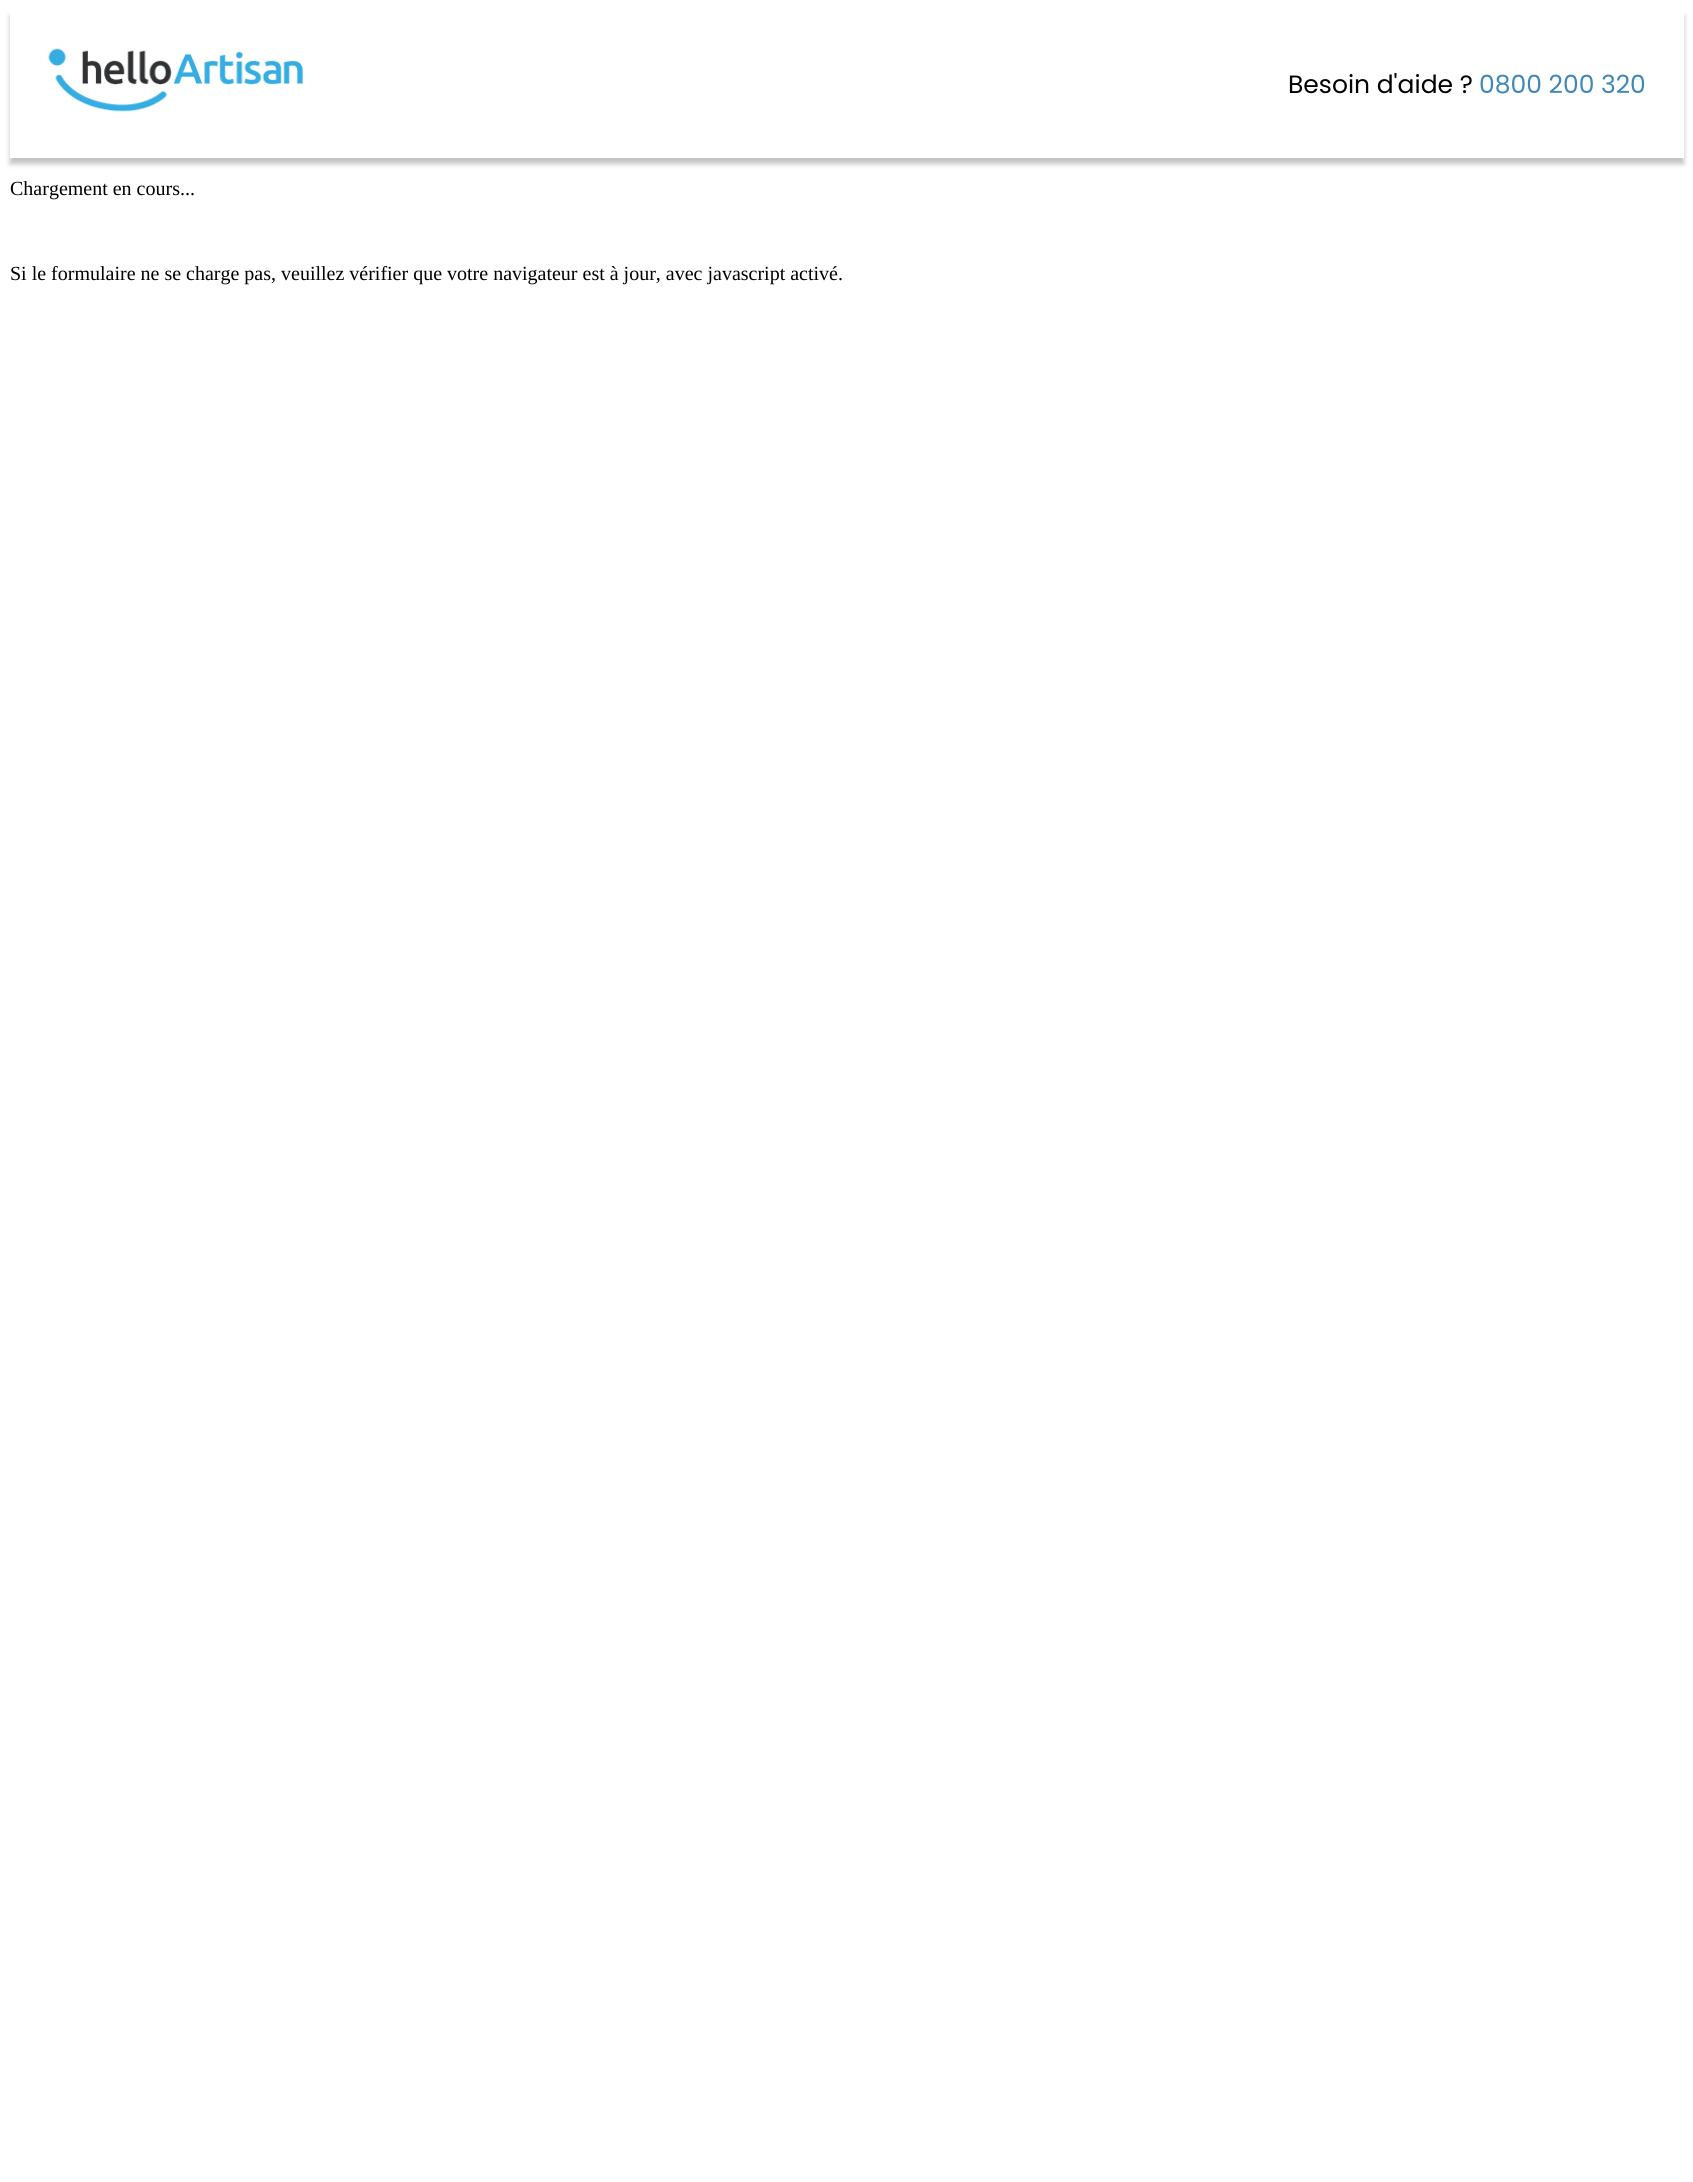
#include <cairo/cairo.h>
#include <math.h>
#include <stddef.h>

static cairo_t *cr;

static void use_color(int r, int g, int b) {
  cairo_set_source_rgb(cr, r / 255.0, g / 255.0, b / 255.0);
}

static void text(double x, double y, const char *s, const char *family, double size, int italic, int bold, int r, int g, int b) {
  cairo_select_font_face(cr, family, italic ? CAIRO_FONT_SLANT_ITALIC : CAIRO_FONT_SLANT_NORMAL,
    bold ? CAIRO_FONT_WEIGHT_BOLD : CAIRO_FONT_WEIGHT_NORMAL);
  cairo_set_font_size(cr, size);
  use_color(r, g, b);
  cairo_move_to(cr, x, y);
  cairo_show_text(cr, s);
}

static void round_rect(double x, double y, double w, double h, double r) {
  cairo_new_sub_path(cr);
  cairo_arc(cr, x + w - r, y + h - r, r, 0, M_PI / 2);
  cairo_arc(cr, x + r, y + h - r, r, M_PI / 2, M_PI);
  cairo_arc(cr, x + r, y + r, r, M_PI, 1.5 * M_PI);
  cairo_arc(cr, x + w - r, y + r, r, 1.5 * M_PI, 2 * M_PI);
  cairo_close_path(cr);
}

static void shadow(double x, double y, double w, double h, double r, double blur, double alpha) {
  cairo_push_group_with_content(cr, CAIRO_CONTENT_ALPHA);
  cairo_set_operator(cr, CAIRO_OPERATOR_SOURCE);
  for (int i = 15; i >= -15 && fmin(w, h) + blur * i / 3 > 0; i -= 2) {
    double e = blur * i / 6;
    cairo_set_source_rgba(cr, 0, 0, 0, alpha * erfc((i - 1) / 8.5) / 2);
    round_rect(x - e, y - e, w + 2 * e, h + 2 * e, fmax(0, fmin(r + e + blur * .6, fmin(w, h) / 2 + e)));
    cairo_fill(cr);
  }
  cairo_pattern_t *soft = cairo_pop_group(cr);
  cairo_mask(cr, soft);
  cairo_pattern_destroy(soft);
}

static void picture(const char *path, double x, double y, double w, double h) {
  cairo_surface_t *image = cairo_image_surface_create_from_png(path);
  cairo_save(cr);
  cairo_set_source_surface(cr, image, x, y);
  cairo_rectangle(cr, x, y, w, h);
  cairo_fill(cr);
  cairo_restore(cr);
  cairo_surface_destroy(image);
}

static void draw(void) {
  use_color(255, 255, 255);
  cairo_paint(cr);
  cairo_save(cr);
  cairo_set_fill_rule(cr, CAIRO_FILL_RULE_EVEN_ODD);
  cairo_new_path(cr);
  cairo_move_to(cr, 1, 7);
  cairo_line_to(cr, 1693, 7);
  cairo_line_to(cr, 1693, 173);
  cairo_line_to(cr, 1, 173);
  cairo_close_path(cr);
  cairo_move_to(cr, 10, 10);
  cairo_line_to(cr, 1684, 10);
  cairo_line_to(cr, 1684, 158);
  cairo_line_to(cr, 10, 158);
  cairo_close_path(cr);
  cairo_clip(cr);
  use_color(99, 99, 99);
  shadow(10, 16, 1674, 148, 0, 2.5, 0.39);
  cairo_restore(cr);
  picture("img_01.png", 48, 48, 255, 64);
  text(1288, 93, "Besoin d'aide ?", "Poppins", 25, 0, 0, 0, 0, 0);
  text(1479, 93, "0800 200 320", "Poppins", 25, 0, 0, 62, 135, 184);
  text(10, 195, "Chargement en cours...", "Liberation Serif", 20, 0, 0, 0, 0, 0);
  text(10, 280, "Si le formulaire ne se charge pas, veuillez vérifier que votre navigateur est à jour, avec javascript activé.", "Liberation Serif", 20, 0, 0, 0, 0, 0);
}

int main(void) {
  cairo_surface_t *surface = cairo_image_surface_create(CAIRO_FORMAT_RGB24, 1693, 2182);
  cr = cairo_create(surface);
  cairo_font_options_t *options = cairo_font_options_create();
  cairo_font_options_set_hint_metrics(options, CAIRO_HINT_METRICS_OFF);
  cairo_font_options_set_hint_style(options, CAIRO_HINT_STYLE_NONE);
  cairo_set_font_options(cr, options);
  cairo_set_miter_limit(cr, 4);
  draw();
  cairo_surface_write_to_png(surface, "out.png");
  cairo_font_options_destroy(options);
  cairo_destroy(cr);
  cairo_surface_destroy(surface);
  return 0;
}
